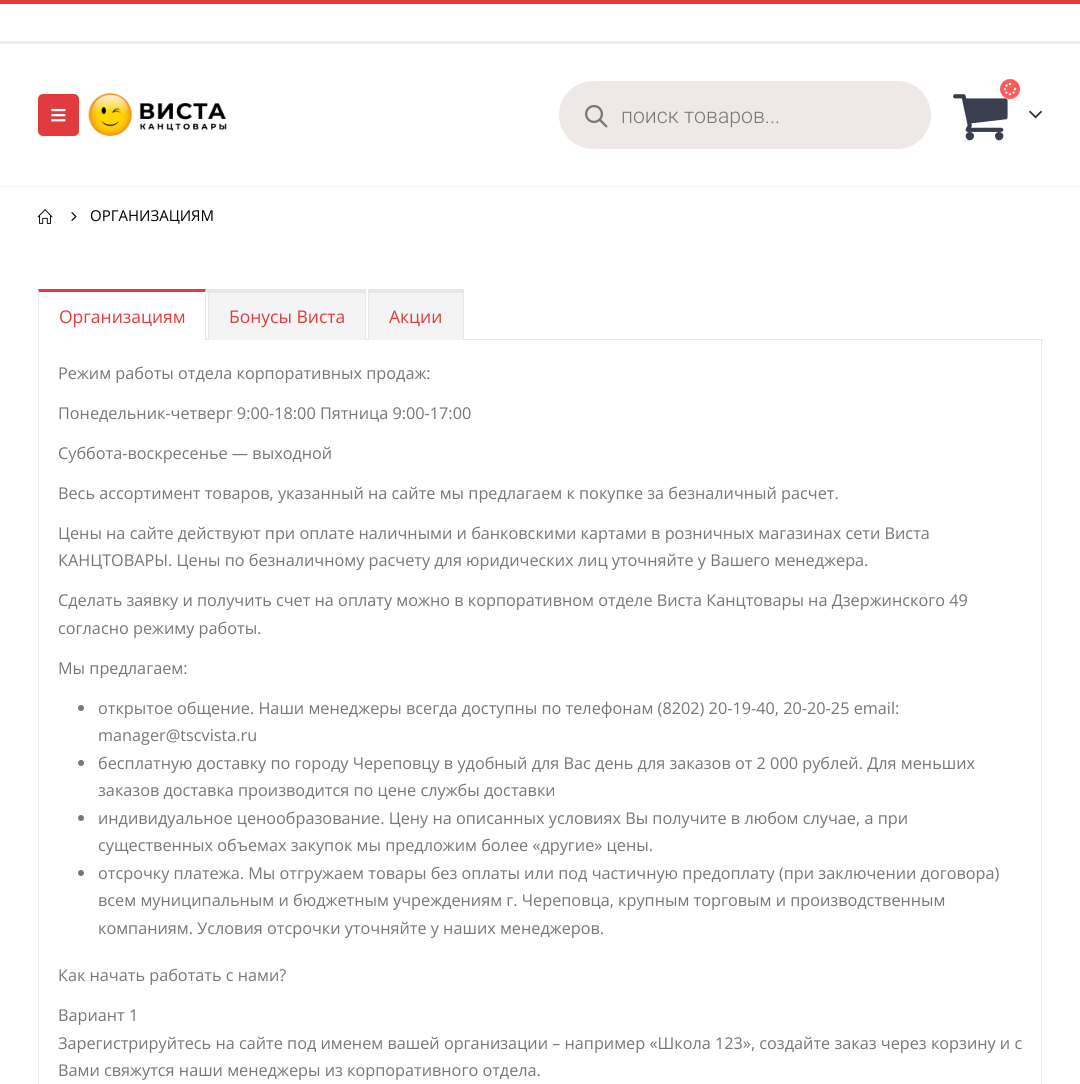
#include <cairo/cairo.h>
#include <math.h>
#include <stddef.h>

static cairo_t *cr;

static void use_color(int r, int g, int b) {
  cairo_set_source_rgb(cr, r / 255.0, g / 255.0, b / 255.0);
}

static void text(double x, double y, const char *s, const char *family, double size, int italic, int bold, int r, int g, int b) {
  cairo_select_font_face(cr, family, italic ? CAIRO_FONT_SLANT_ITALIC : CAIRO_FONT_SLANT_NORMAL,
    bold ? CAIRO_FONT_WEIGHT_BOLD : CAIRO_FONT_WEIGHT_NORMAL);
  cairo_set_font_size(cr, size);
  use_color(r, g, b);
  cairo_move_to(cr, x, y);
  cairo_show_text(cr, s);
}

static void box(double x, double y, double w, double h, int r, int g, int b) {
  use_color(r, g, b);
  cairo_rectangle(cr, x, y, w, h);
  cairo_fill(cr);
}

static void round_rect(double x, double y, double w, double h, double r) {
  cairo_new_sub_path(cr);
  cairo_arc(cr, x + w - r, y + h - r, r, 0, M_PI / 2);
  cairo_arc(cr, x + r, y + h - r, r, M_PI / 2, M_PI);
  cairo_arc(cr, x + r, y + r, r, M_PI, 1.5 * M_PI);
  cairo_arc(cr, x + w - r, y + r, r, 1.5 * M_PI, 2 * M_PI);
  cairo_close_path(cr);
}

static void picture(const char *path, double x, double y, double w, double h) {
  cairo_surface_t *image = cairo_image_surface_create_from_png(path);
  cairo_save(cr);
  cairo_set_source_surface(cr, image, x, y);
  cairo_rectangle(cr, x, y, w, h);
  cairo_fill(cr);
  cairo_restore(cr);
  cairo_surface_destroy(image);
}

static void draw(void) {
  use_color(255, 255, 255);
  cairo_paint(cr);
  box(0, 0, 1080, 4, 225, 59, 63);
  box(0, 41, 1080, 3, 238, 238, 238);
  use_color(225, 59, 63);
  round_rect(38, 94, 41, 42, 5);
  cairo_fill(cr);
  picture("img_01.png", 51, 108, 15, 14);
  picture("img_02.png", 88, 93, 139, 43);
  use_color(238, 233, 230);
  round_rect(560.5, 82.5, 369, 65, 32.5);
  cairo_fill_preserve(cr);
  cairo_set_line_width(cr, 3);
  cairo_stroke(cr);
  picture("img_03.png", 585, 105, 23, 23);
  picture("img_05.png", 953, 94, 55, 47);
  use_color(255, 91, 91);
  cairo_arc(cr, 1010, 89, 10, 0, 2 * M_PI);
  cairo_fill(cr);
  picture("img_04.png", 1003, 82, 14, 14);
  picture("img_06.png", 1029, 110, 13, 9);
  box(0, 186, 1080, 1, 243, 243, 243);
  picture("img_07.png", 37, 209, 16, 15);
  picture("img_08.png", 71, 212, 6, 9);
  box(206, 339, 837, 1, 231, 231, 231);
  use_color(225, 59, 63);
  cairo_new_path(cr);
  cairo_move_to(cr, 38, 289);
  cairo_line_to(cr, 206, 289);
  cairo_line_to(cr, 205, 292);
  cairo_line_to(cr, 39, 292);
  cairo_close_path(cr);
  cairo_fill(cr);
  use_color(231, 231, 231);
  cairo_new_path(cr);
  cairo_move_to(cr, 206, 289);
  cairo_line_to(cr, 206, 340);
  cairo_line_to(cr, 205, 340);
  cairo_line_to(cr, 205, 292);
  cairo_close_path(cr);
  cairo_fill(cr);
  cairo_new_path(cr);
  cairo_move_to(cr, 38, 340);
  cairo_line_to(cr, 38, 289);
  cairo_line_to(cr, 39, 292);
  cairo_line_to(cr, 39, 340);
  cairo_close_path(cr);
  cairo_fill(cr);
  box(209, 293, 156, 47, 244, 244, 244);
  box(208, 289, 158, 4, 231, 231, 231);
  box(365, 289, 1, 51, 231, 231, 231);
  box(208, 289, 1, 51, 231, 231, 231);
  box(369, 293, 94, 47, 244, 244, 244);
  box(368, 289, 96, 4, 231, 231, 231);
  box(463, 289, 1, 51, 231, 231, 231);
  box(368, 289, 1, 51, 231, 231, 231);
  box(1041, 340, 1, 744, 231, 231, 231);
  box(38, 340, 1, 744, 231, 231, 231);
  use_color(119, 119, 119);
  cairo_arc(cr, 81, 708, 3, 0, 2 * M_PI);
  cairo_fill(cr);
  cairo_arc(cr, 81, 763, 3, 0, 2 * M_PI);
  cairo_fill(cr);
  cairo_arc(cr, 81, 818, 3, 0, 2 * M_PI);
  cairo_fill(cr);
  cairo_arc(cr, 81, 873, 3, 0, 2 * M_PI);
  cairo_fill(cr);
  text(621, 123, "поиск товаров...", "Roboto Light", 21.25, 0, 0, 119, 119, 119);
  text(90, 221, "ОРГАНИЗАЦИЯМ", "Open Sans", 15, 0, 0, 0, 0, 0);
  text(59, 323, "Организациям", "Open Sans", 17.5, 0, 0, 225, 59, 63);
  text(229, 323, "Бонусы Виста", "Open Sans", 17.5, 0, 0, 225, 59, 63);
  text(389, 323, "Акции", "Open Sans", 17.5, 0, 0, 225, 59, 63);
  text(58, 379, "Режим работы отдела корпоративных продаж:", "Open Sans", 16.25, 0, 0, 119, 119, 119);
  text(58, 419, "Понедельник-четверг 9:00-18:00 Пятница 9:00-17:00", "Open Sans", 16.25, 0, 0, 119, 119, 119);
  text(58, 459, "Суббота-воскресенье — выходной", "Open Sans", 16.25, 0, 0, 119, 119, 119);
  text(58, 499, "Весь ассортимент товаров, указанный на сайте мы предлагаем к покупке за безналичный расчет.", "Open Sans", 16.25, 0, 0, 119, 119, 119);
  text(58, 539, "Цены на сайте действуют при оплате наличными и банковскими картами в розничных магазинах сети Виста", "Open Sans", 16.25, 0, 0, 119, 119, 119);
  text(58, 566, "КАНЦТОВАРЫ. Цены по безналичному расчету для юридических лиц уточняйте у Вашего менеджера.", "Open Sans", 16.25, 0, 0, 119, 119, 119);
  text(58, 606, "Сделать заявку и получить счет на оплату можно в корпоративном отделе Виста Канцтовары на Дзержинского 49", "Open Sans", 16.25, 0, 0, 119, 119, 119);
  text(58, 634, "согласно режиму работы.", "Open Sans", 16.25, 0, 0, 119, 119, 119);
  text(58, 674, "Мы предлагаем:", "Open Sans", 16.25, 0, 0, 119, 119, 119);
  text(98, 714, "открытое общение. Наши менеджеры всегда доступны по телефонам (8202) 20-19-40, 20-20-25 email:", "Open Sans", 16.25, 0, 0, 119, 119, 119);
  text(98, 741, "manager@tscvista.ru", "Open Sans", 16.25, 0, 0, 119, 119, 119);
  text(98, 769, "бесплатную доставку по городу Череповцу в удобный для Вас день для заказов от 2 000 рублей. Для меньших", "Open Sans", 16.25, 0, 0, 119, 119, 119);
  text(98, 796, "заказов доставка производится по цене службы доставки", "Open Sans", 16.25, 0, 0, 119, 119, 119);
  text(98, 824, "индивидуальное ценообразование. Цену на описанных условиях Вы получите в любом случае, а при", "Open Sans", 16.25, 0, 0, 119, 119, 119);
  text(98, 851, "существенных объемах закупок мы предложим более «другие» цены.", "Open Sans", 16.25, 0, 0, 119, 119, 119);
  text(98, 879, "отсрочку платежа. Мы отгружаем товары без оплаты или под частичную предоплату (при заключении договора)", "Open Sans", 16.25, 0, 0, 119, 119, 119);
  text(98, 906, "всем муниципальным и бюджетным учреждениям г. Череповца, крупным торговым и производственным", "Open Sans", 16.25, 0, 0, 119, 119, 119);
  text(98, 934, "компаниям. Условия отсрочки уточняйте у наших менеджеров.", "Open Sans", 16.25, 0, 0, 119, 119, 119);
  text(58, 981, "Как начать работать с нами?", "Open Sans", 16.25, 0, 0, 119, 119, 119);
  text(58, 1021, "Вариант 1", "Open Sans", 16.25, 0, 0, 119, 119, 119);
  text(58, 1049, "Зарегистрируйтесь на сайте под именем вашей организации – например «Школа 123», создайте заказ через корзину и с", "Open Sans", 16.25, 0, 0, 119, 119, 119);
  text(58, 1076, "Вами свяжутся наши менеджеры из корпоративного отдела.", "Open Sans", 16.25, 0, 0, 119, 119, 119);
}

int main(void) {
  cairo_surface_t *surface = cairo_image_surface_create(CAIRO_FORMAT_RGB24, 1080, 1084);
  cr = cairo_create(surface);
  cairo_font_options_t *options = cairo_font_options_create();
  cairo_font_options_set_hint_metrics(options, CAIRO_HINT_METRICS_OFF);
  cairo_font_options_set_hint_style(options, CAIRO_HINT_STYLE_NONE);
  cairo_set_font_options(cr, options);
  cairo_set_miter_limit(cr, 4);
  draw();
  cairo_surface_write_to_png(surface, "out.png");
  cairo_font_options_destroy(options);
  cairo_destroy(cr);
  cairo_surface_destroy(surface);
  return 0;
}
